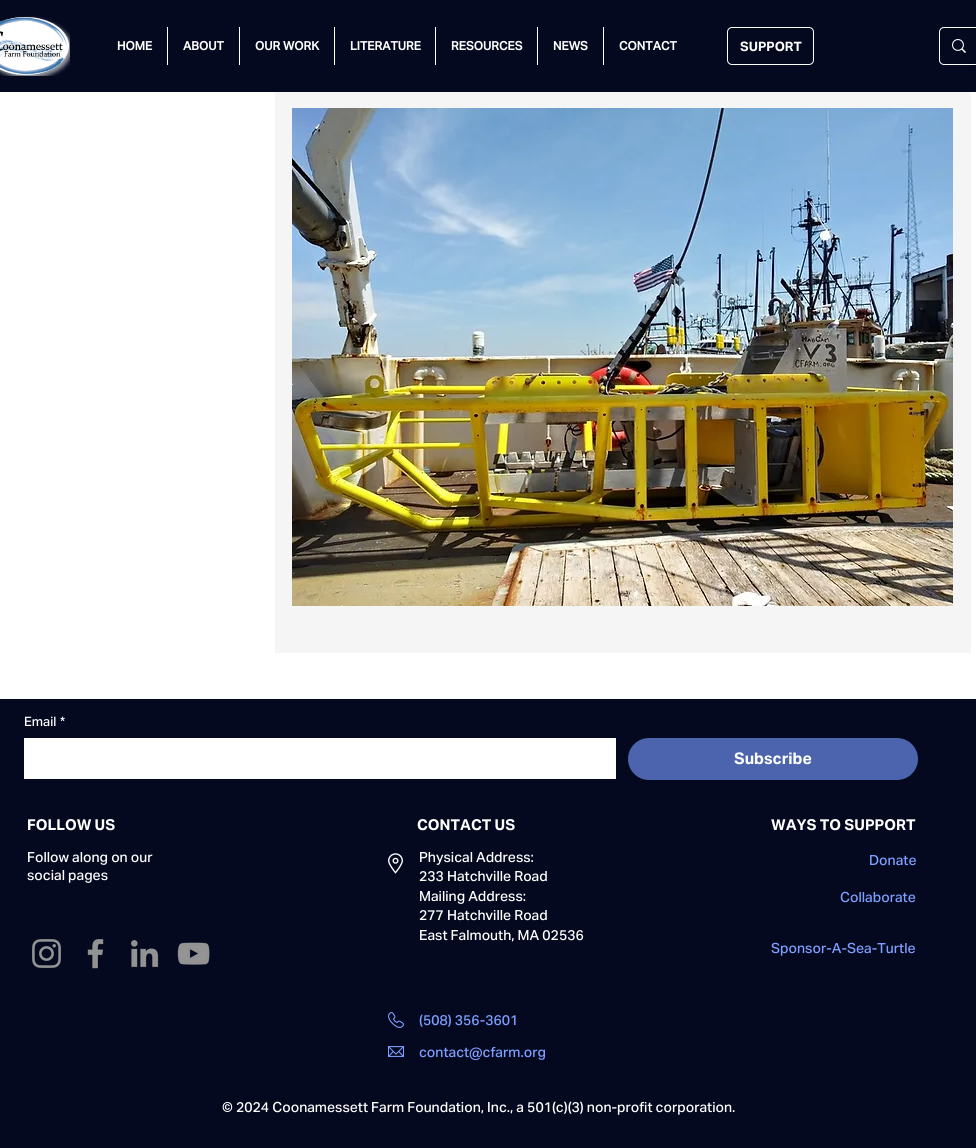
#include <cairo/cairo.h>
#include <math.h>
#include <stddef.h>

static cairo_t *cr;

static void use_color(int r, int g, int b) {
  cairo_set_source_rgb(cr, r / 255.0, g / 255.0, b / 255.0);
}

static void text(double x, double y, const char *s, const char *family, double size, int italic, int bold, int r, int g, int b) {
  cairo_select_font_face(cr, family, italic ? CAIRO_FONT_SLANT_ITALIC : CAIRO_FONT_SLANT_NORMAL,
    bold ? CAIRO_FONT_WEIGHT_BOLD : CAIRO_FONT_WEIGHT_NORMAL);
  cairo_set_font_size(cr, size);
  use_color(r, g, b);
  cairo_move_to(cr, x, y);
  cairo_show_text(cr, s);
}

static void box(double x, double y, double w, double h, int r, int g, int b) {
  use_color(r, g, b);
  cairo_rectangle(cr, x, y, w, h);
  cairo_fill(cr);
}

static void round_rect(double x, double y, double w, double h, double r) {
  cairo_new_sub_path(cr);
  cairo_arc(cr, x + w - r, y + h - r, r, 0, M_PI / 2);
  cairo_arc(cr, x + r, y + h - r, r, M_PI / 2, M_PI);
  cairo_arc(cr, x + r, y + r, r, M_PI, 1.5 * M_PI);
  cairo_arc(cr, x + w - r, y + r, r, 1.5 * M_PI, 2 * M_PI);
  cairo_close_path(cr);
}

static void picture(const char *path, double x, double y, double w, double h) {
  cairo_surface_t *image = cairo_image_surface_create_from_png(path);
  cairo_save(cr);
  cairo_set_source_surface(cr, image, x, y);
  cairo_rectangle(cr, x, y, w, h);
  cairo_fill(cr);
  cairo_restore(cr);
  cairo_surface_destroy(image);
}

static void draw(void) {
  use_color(255, 255, 255);
  cairo_paint(cr);
  box(0, 0, 976, 92, 4, 9, 32);
  picture("img_01.png", 0, 16, 70, 60);
  picture("img_02.png", 0, 17, 67, 58);
  box(167, 27, 1, 38, 255, 255, 255);
  box(239, 27, 1, 38, 255, 255, 255);
  box(334, 27, 1, 38, 255, 255, 255);
  box(435, 27, 1, 38, 255, 255, 255);
  box(537, 27, 1, 38, 255, 255, 255);
  box(603, 27, 1, 38, 255, 255, 255);
  round_rect(727.5, 27.5, 86, 37, 4.5);
  cairo_set_line_width(cr, 1);
  cairo_stroke(cr);
  round_rect(939.5, 27.5, 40, 37, 4.5);
  cairo_stroke(cr);
  picture("img_03.png", 952, 39, 14, 14);
  box(275, 92, 696, 561, 245, 245, 245);
  picture("img_04.png", 292, 108, 661, 498);
  box(0, 699, 976, 449, 4, 9, 32);
  box(24, 738, 592, 41, 255, 255, 255);
  use_color(75, 100, 173);
  round_rect(628, 738, 290, 42, 21);
  cairo_fill(cr);
  picture("img_05.png", 388, 853, 15, 21);
  picture("img_06.png", 32, 939, 29, 29);
  picture("img_07.png", 87, 939, 17, 30);
  picture("img_08.png", 130, 940, 29, 28);
  picture("img_09.png", 177, 942, 33, 23);
  picture("img_10.png", 388, 1012, 16, 16);
  picture("img_11.png", 388, 1046, 16, 11);
  text(117, 50, "HOME", "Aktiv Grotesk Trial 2", 12, 0, 1, 255, 255, 255);
  text(183, 50, "ABOUT", "Aktiv Grotesk Trial 2", 12, 0, 1, 255, 255, 255);
  text(255, 50, "OUR WORK", "Aktiv Grotesk Trial 2", 12, 0, 1, 255, 255, 255);
  text(350, 50, "LITERATURE", "Aktiv Grotesk Trial 2", 12, 0, 1, 255, 255, 255);
  text(451, 50, "RESOURCES", "Aktiv Grotesk Trial 2", 12, 0, 1, 255, 255, 255);
  text(553, 50, "NEWS", "Aktiv Grotesk Trial 2", 12, 0, 1, 255, 255, 255);
  text(619, 50, "CONTACT", "Aktiv Grotesk Trial 2", 12, 0, 1, 255, 255, 255);
  text(740, 51, "SUPPORT", "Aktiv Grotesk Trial", 13, 0, 1, 255, 255, 255);
  text(24, 726, "Email", "Aktiv Grotesk Trial Medium", 13, 0, 0, 255, 255, 255);
  text(60, 726, "*", "Aktiv Grotesk Trial Medium", 13, 0, 0, 255, 255, 255);
  text(734, 764, "Subscribe", "Aktiv Grotesk Trial", 16, 0, 1, 255, 255, 255);
  text(27, 830, "FOLLOW US", "Aktiv Grotesk Trial", 15, 0, 1, 255, 255, 255);
  text(27, 862, "Follow along on our", "Aktiv Grotesk Trial Medium", 14, 0, 0, 255, 255, 255);
  text(27, 880, "social pages", "Aktiv Grotesk Trial Medium", 14, 0, 0, 255, 255, 255);
  text(417, 830, "CONTACT US", "Aktiv Grotesk Trial", 15, 0, 1, 255, 255, 255);
  text(771, 830, "WAYS TO SUPPORT", "Aktiv Grotesk Trial", 15, 0, 1, 255, 255, 255);
  text(419, 862, "Physical Address:", "Aktiv Grotesk Trial Medium", 14, 0, 0, 255, 255, 255);
  text(419, 881, "233 Hatchville Road", "Aktiv Grotesk Trial Medium", 14, 0, 0, 255, 255, 255);
  text(419, 901, "Mailing Address:", "Aktiv Grotesk Trial Medium", 14, 0, 0, 255, 255, 255);
  text(419, 920, "277 Hatchville Road", "Aktiv Grotesk Trial Medium", 14, 0, 0, 255, 255, 255);
  text(419, 940, "East Falmouth, MA 02536", "Aktiv Grotesk Trial Medium", 14, 0, 0, 255, 255, 255);
  text(869, 865, "Donate", "Aktiv Grotesk Trial Medium", 14, 0, 0, 126, 159, 255);
  text(840, 902, "Collaborate", "Aktiv Grotesk Trial Medium", 14, 0, 0, 126, 159, 255);
  text(771, 953, "Sponsor-A-Sea-Turtle", "Aktiv Grotesk Trial Medium", 14, 0, 0, 126, 159, 255);
  text(419, 1025, "(508) 356-3601", "Aktiv Grotesk Trial Medium", 14, 0, 0, 126, 159, 255);
  text(419, 1057, "contact@cfarm.org", "Aktiv Grotesk Trial Medium", 14, 0, 0, 126, 159, 255);
  text(222, 1112, "© 2024 Coonamessett Farm Foundation, Inc., a 501(c)(3) non-profit corporation.", "Aktiv Grotesk Trial Medium", 14, 0, 0, 255, 255, 255);
}

int main(void) {
  cairo_surface_t *surface = cairo_image_surface_create(CAIRO_FORMAT_RGB24, 976, 1148);
  cr = cairo_create(surface);
  cairo_font_options_t *options = cairo_font_options_create();
  cairo_font_options_set_hint_metrics(options, CAIRO_HINT_METRICS_OFF);
  cairo_font_options_set_hint_style(options, CAIRO_HINT_STYLE_NONE);
  cairo_set_font_options(cr, options);
  cairo_set_miter_limit(cr, 4);
  draw();
  cairo_surface_write_to_png(surface, "out.png");
  cairo_font_options_destroy(options);
  cairo_destroy(cr);
  cairo_surface_destroy(surface);
  return 0;
}
